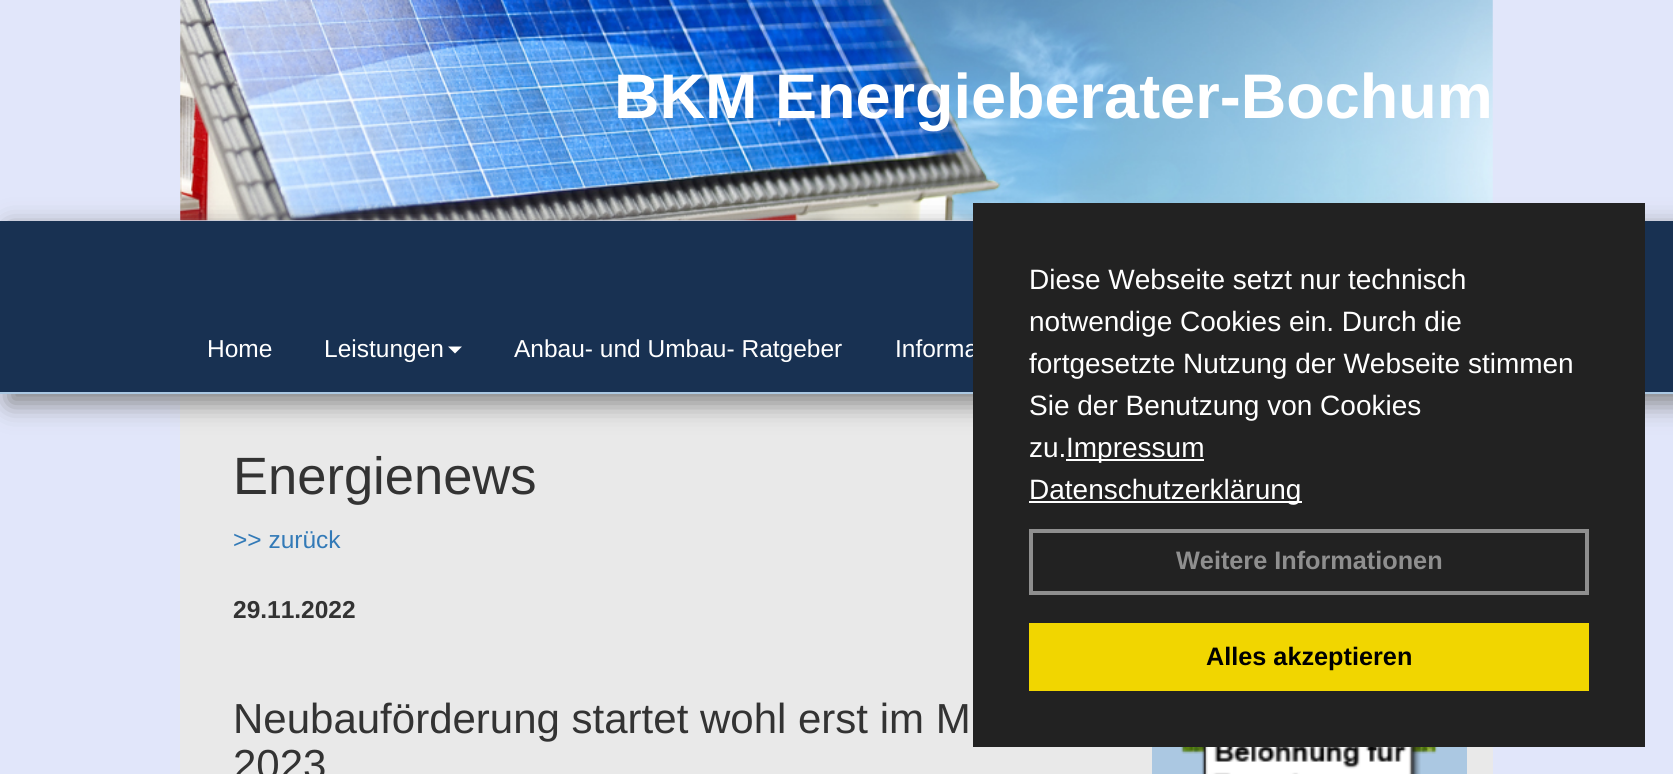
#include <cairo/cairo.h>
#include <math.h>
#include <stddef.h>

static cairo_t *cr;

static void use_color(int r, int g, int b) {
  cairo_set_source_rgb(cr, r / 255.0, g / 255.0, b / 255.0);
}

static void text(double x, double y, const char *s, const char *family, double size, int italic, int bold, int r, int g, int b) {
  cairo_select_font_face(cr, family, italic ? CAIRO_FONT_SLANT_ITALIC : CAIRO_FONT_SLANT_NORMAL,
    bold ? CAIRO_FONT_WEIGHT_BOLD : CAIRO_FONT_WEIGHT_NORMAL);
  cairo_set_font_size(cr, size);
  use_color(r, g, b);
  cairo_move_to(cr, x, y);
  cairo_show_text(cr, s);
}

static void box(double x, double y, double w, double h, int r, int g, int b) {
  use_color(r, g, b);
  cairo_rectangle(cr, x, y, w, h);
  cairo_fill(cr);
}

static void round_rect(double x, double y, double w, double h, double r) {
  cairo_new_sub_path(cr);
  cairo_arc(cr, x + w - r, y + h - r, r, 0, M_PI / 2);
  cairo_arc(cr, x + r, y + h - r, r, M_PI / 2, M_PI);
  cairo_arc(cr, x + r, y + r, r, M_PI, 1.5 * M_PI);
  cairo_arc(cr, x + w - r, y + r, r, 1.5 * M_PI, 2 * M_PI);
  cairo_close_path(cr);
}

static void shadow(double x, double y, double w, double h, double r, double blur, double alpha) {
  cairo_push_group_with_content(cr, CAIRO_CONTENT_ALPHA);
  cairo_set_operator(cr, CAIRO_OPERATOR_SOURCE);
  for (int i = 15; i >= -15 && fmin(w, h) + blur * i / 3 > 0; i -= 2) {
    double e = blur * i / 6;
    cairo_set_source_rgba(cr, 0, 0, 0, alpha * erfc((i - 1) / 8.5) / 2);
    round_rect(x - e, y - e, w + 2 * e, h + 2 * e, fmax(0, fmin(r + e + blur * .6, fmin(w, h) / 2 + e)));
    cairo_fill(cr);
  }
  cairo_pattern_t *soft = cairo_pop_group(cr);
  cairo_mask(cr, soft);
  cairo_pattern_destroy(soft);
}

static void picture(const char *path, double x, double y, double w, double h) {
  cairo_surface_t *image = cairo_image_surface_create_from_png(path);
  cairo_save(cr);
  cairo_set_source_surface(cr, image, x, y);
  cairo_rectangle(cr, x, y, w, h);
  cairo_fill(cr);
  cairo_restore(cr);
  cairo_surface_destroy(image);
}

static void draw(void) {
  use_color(225, 230, 250);
  cairo_paint(cr);
  picture("img_01.png", 180, 0, 1313, 221);
  box(180, 394, 1313, 380, 233, 233, 233);
  use_color(128, 128, 128);
  shadow(9, 229, 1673, 174, 0, 13, 1);
  box(0, 221, 1673, 171, 24, 49, 82);
  box(0, 392, 1673, 2, 171, 200, 226);
  use_color(255, 255, 255);
  cairo_new_path(cr);
  cairo_move_to(cr, 448, 346.5);
  cairo_line_to(cr, 462, 346.5);
  cairo_line_to(cr, 455, 353.5);
  cairo_close_path(cr);
  cairo_fill(cr);
  box(1152, 747, 315, 27, 171, 200, 226);
  picture("img_02.png", 1180, 747, 258, 27);
  text(614, 118, "BKM Energieberater-Bochum", "Liberation Sans", 63, 0, 1, 255, 255, 255);
  text(207, 357, "Home", "Liberation Sans", 24.5, 0, 0, 255, 255, 255);
  text(324, 357, "Leistungen", "Liberation Sans", 24.5, 0, 0, 255, 255, 255);
  text(514, 357, "Anbau- und Umbau- Ratgeber", "Liberation Sans", 24.5, 0, 0, 255, 255, 255);
  text(895, 357, "Informa", "Liberation Sans", 24.5, 0, 0, 255, 255, 255);
  text(233, 494, "Energienews", "Liberation Sans", 52.5, 0, 0, 51, 51, 51);
  text(233, 548, ">> zurück", "Liberation Sans", 24.5, 0, 0, 51, 122, 183);
  text(233, 618, "29.11.2022", "Liberation Sans", 24.5, 0, 1, 51, 51, 51);
  text(233, 733, "Neubauförderung startet wohl erst im M", "Liberation Sans", 42, 0, 0, 51, 51, 51);
  text(233, 779, "2023", "Liberation Sans", 42, 0, 0, 51, 51, 51);
  box(973, 203, 672, 544, 34, 34, 34);
  text(1029, 289, "Diese Webseite setzt nur technisch", "Liberation Sans", 28, 0, 0, 255, 255, 255);
  text(1029, 331, "notwendige Cookies ein. Durch die", "Liberation Sans", 28, 0, 0, 255, 255, 255);
  text(1029, 373, "fortgesetzte Nutzung der Webseite stimmen", "Liberation Sans", 28, 0, 0, 255, 255, 255);
  text(1029, 415, "Sie der Benutzung von Cookies", "Liberation Sans", 28, 0, 0, 255, 255, 255);
  text(1029, 457, "zu.", "Liberation Sans", 28, 0, 0, 255, 255, 255);
  box(1066, 459, 138, 2, 255, 255, 255);
  text(1066, 457, "Impressum", "Liberation Sans", 28, 0, 0, 255, 255, 255);
  box(1029, 501, 273, 2, 255, 255, 255);
  text(1029, 499, "Datenschutzerklärung", "Liberation Sans", 28, 0, 0, 255, 255, 255);
  cairo_rectangle(cr, 1031, 531, 556, 62);
  use_color(143, 143, 143);
  cairo_set_line_width(cr, 4);
  cairo_stroke(cr);
  text(1176, 569, "Weitere Informationen", "Liberation Sans", 25.25, 0, 1, 143, 143, 143);
  box(1029, 623, 560, 68, 241, 214, 0);
  text(1206, 665, "Alles akzeptieren", "Liberation Sans", 25.25, 0, 1, 0, 0, 0);
}

int main(void) {
  cairo_surface_t *surface = cairo_image_surface_create(CAIRO_FORMAT_RGB24, 1673, 774);
  cr = cairo_create(surface);
  cairo_font_options_t *options = cairo_font_options_create();
  cairo_font_options_set_hint_metrics(options, CAIRO_HINT_METRICS_OFF);
  cairo_font_options_set_hint_style(options, CAIRO_HINT_STYLE_NONE);
  cairo_set_font_options(cr, options);
  cairo_set_miter_limit(cr, 4);
  draw();
  cairo_surface_write_to_png(surface, "out.png");
  cairo_font_options_destroy(options);
  cairo_destroy(cr);
  cairo_surface_destroy(surface);
  return 0;
}
